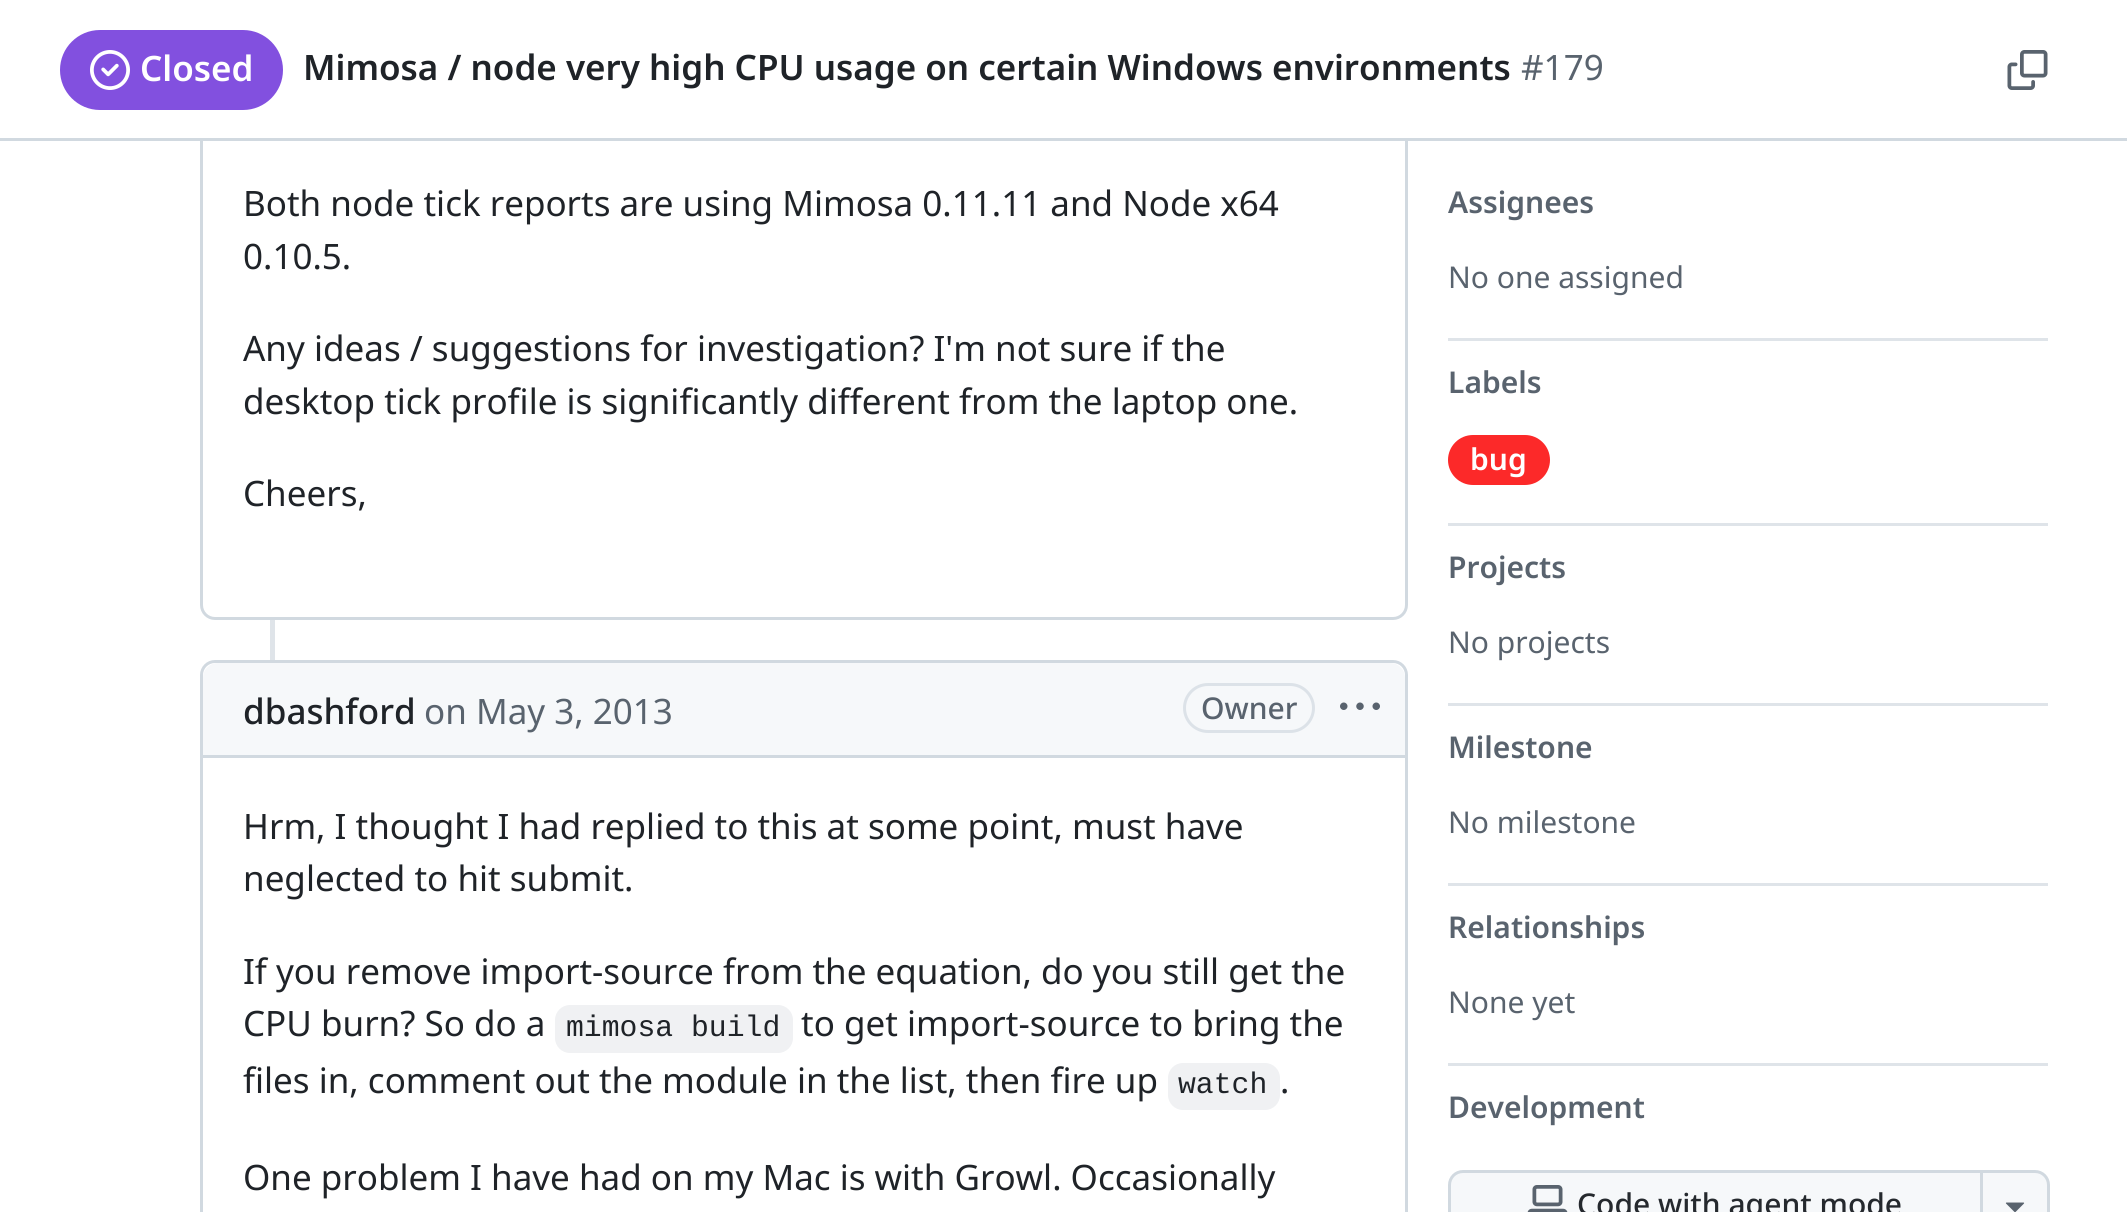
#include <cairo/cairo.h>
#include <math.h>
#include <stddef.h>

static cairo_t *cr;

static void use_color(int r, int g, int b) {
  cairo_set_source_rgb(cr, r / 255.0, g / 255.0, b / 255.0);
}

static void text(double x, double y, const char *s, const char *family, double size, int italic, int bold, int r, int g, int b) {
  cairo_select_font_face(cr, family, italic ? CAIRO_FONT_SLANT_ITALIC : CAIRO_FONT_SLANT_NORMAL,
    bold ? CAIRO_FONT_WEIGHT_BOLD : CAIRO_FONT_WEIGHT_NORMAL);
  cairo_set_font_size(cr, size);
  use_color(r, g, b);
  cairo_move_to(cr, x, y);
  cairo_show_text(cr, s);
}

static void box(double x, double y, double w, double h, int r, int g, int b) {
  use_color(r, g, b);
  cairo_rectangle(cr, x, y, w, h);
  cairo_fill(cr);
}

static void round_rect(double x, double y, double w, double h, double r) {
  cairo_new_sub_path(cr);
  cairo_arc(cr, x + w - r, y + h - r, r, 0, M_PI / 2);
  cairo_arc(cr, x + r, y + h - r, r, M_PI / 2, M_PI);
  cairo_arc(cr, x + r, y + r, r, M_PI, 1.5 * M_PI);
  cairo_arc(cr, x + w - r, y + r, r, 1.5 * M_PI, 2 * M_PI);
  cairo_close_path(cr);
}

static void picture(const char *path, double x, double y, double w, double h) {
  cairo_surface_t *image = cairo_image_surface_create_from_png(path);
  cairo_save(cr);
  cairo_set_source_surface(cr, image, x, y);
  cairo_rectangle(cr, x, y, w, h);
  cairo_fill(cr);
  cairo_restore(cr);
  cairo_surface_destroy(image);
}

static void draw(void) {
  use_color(255, 255, 255);
  cairo_paint(cr);
  round_rect(201.5, -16.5, 1205, 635, 13.5);
  use_color(209, 217, 224);
  cairo_set_line_width(cr, 3);
  cairo_stroke(cr);
  box(200, 0, 1208, 138, 255, 255, 255);
  box(0, 138, 2127, 3, 209, 217, 224);
  use_color(130, 80, 223);
  round_rect(61.5, 31.5, 220, 77, 38.5);
  cairo_fill_preserve(cr);
  cairo_stroke(cr);
  picture("img_01.png", 90, 50, 40, 40);
  picture("img_02.png", 2007, 50, 41, 40);
  box(270, 620, 5, 40, 223, 228, 233);
  round_rect(201.5, 661.5, 1205, 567, 13.5);
  use_color(209, 217, 224);
  cairo_stroke(cr);
  use_color(246, 248, 250);
  cairo_new_path(cr);
  cairo_move_to(cr, 218, 663);
  cairo_line_to(cr, 1390, 663);
  cairo_curve_to(cr, 1398.5, 663, 1405, 669.5, 1405, 678);
  cairo_line_to(cr, 1405, 758);
  cairo_line_to(cr, 203, 758);
  cairo_line_to(cr, 203, 678);
  cairo_curve_to(cr, 203, 669.5, 209.5, 663, 218, 663);
  cairo_close_path(cr);
  cairo_fill(cr);
  box(203, 755, 1202, 3, 209, 217, 224);
  round_rect(1184.5, 684.5, 129, 47, 23.5);
  use_color(220, 226, 232);
  cairo_stroke(cr);
  picture("img_03.png", 1340, 702, 40, 8);
  use_color(240, 241, 243);
  round_rect(555, 1005, 238, 48, 15);
  cairo_fill(cr);
  round_rect(1168, 1063, 112, 47, 15);
  cairo_fill(cr);
  box(1448, 338, 600, 3, 223, 228, 233);
  use_color(252, 41, 41);
  round_rect(1448, 435, 102, 50, 25);
  cairo_fill(cr);
  box(1448, 523, 600, 3, 223, 228, 233);
  box(1448, 703, 600, 3, 223, 228, 233);
  box(1448, 883, 600, 3, 223, 228, 233);
  box(1448, 1063, 600, 3, 223, 228, 233);
  use_color(246, 248, 250);
  cairo_new_path(cr);
  cairo_move_to(cr, 1463, 1171.5);
  cairo_line_to(cr, 1981.5, 1171.5);
  cairo_line_to(cr, 1981.5, 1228.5);
  cairo_line_to(cr, 1463, 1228.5);
  cairo_curve_to(cr, 1455.5, 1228.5, 1449.5, 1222.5, 1449.5, 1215);
  cairo_line_to(cr, 1449.5, 1185);
  cairo_curve_to(cr, 1449.5, 1177.5, 1455.5, 1171.5, 1463, 1171.5);
  cairo_close_path(cr);
  cairo_fill_preserve(cr);
  use_color(209, 217, 224);
  cairo_stroke(cr);
  picture("img_04.png", 1527, 1185, 41, 27);
  use_color(246, 248, 250);
  cairo_new_path(cr);
  cairo_move_to(cr, 1981.5, 1171.5);
  cairo_line_to(cr, 2035, 1171.5);
  cairo_curve_to(cr, 2042.5, 1171.5, 2048.5, 1177.5, 2048.5, 1185);
  cairo_line_to(cr, 2048.5, 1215);
  cairo_curve_to(cr, 2048.5, 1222.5, 2042.5, 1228.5, 2035, 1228.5);
  cairo_line_to(cr, 1981.5, 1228.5);
  cairo_close_path(cr);
  cairo_fill_preserve(cr);
  use_color(209, 217, 224);
  cairo_stroke(cr);
  picture("img_05.png", 2005, 1202, 20, 10);
  text(140, 81, "Closed", "Noto Sans SemiBold", 35, 0, 0, 255, 255, 255);
  text(303, 80, "Mimosa / node very high CPU usage on certain Windows environments", "Noto Sans SemiBold", 35, 0, 0, 31, 35, 40);
  text(1521, 80, "#179", "Noto Sans", 35, 0, 0, 89, 99, 110);
  text(243, 216, "Both node tick reports are using Mimosa 0.11.11 and Node x64", "Noto Sans", 35, 0, 0, 31, 35, 40);
  text(243, 269, "0.10.5.", "Noto Sans", 35, 0, 0, 31, 35, 40);
  text(243, 361, "Any ideas / suggestions for investigation? I'm not sure if the", "Noto Sans", 35, 0, 0, 31, 35, 40);
  text(243, 414, "desktop tick profile is significantly different from the laptop one.", "Noto Sans", 35, 0, 0, 31, 35, 40);
  text(243, 506, "Cheers,", "Noto Sans", 35, 0, 0, 31, 35, 40);
  text(243, 724, "dbashford", "Noto Sans Medium", 35, 0, 0, 31, 35, 40);
  text(424, 724, "on May 3, 2013", "Noto Sans", 35, 0, 0, 89, 99, 110);
  text(1201, 719, "Owner", "Noto Sans Medium", 30, 0, 0, 89, 99, 110);
  text(243, 839, "Hrm, I thought I had replied to this at some point, must have", "Noto Sans", 35, 0, 0, 31, 35, 40);
  text(243, 891, "neglected to hit submit.", "Noto Sans", 35, 0, 0, 31, 35, 40);
  text(243, 984, "If you remove import-source from the equation, do you still get the", "Noto Sans", 35, 0, 0, 31, 35, 40);
  text(243, 1036, "CPU burn? So do a", "Noto Sans", 35, 0, 0, 31, 35, 40);
  text(566, 1036, "mimosa build", "Liberation Mono", 29.75, 0, 0, 31, 35, 40);
  text(801, 1036, "to get import-source to bring the", "Noto Sans", 35, 0, 0, 31, 35, 40);
  text(243, 1093, "files in, comment out the module in the list, then fire up", "Noto Sans", 35, 0, 0, 31, 35, 40);
  text(1178, 1093, "watch", "Liberation Mono", 29.75, 0, 0, 31, 35, 40);
  text(1280, 1093, ".", "Noto Sans", 35, 0, 0, 31, 35, 40);
  text(243, 1190, "One problem I have had on my Mac is with Growl. Occasionally", "Noto Sans", 35, 0, 0, 31, 35, 40);
  text(1448, 213, "Assignees", "Noto Sans SemiBold", 30, 0, 0, 89, 99, 110);
  text(1448, 288, "No one assigned", "Noto Sans", 30, 0, 0, 89, 99, 110);
  text(1448, 393, "Labels", "Noto Sans SemiBold", 30, 0, 0, 89, 99, 110);
  text(1470, 470, "bug", "Noto Sans SemiBold", 30, 0, 0, 255, 255, 255);
  text(1448, 578, "Projects", "Noto Sans SemiBold", 30, 0, 0, 89, 99, 110);
  text(1448, 653, "No projects", "Noto Sans", 30, 0, 0, 89, 99, 110);
  text(1448, 758, "Milestone", "Noto Sans SemiBold", 30, 0, 0, 89, 99, 110);
  text(1448, 833, "No milestone", "Noto Sans", 30, 0, 0, 89, 99, 110);
  text(1448, 938, "Relationships", "Noto Sans SemiBold", 30, 0, 0, 89, 99, 110);
  text(1448, 1013, "None yet", "Noto Sans", 30, 0, 0, 89, 99, 110);
  text(1448, 1118, "Development", "Noto Sans SemiBold", 30, 0, 0, 89, 99, 110);
  text(1577, 1215, "Code with agent mode", "Noto Sans Medium", 30, 0, 0, 37, 41, 46);
}

int main(void) {
  cairo_surface_t *surface = cairo_image_surface_create(CAIRO_FORMAT_RGB24, 2127, 1212);
  cr = cairo_create(surface);
  cairo_font_options_t *options = cairo_font_options_create();
  cairo_font_options_set_hint_metrics(options, CAIRO_HINT_METRICS_OFF);
  cairo_font_options_set_hint_style(options, CAIRO_HINT_STYLE_NONE);
  cairo_set_font_options(cr, options);
  cairo_set_miter_limit(cr, 4);
  draw();
  cairo_surface_write_to_png(surface, "out.png");
  cairo_font_options_destroy(options);
  cairo_destroy(cr);
  cairo_surface_destroy(surface);
  return 0;
}
